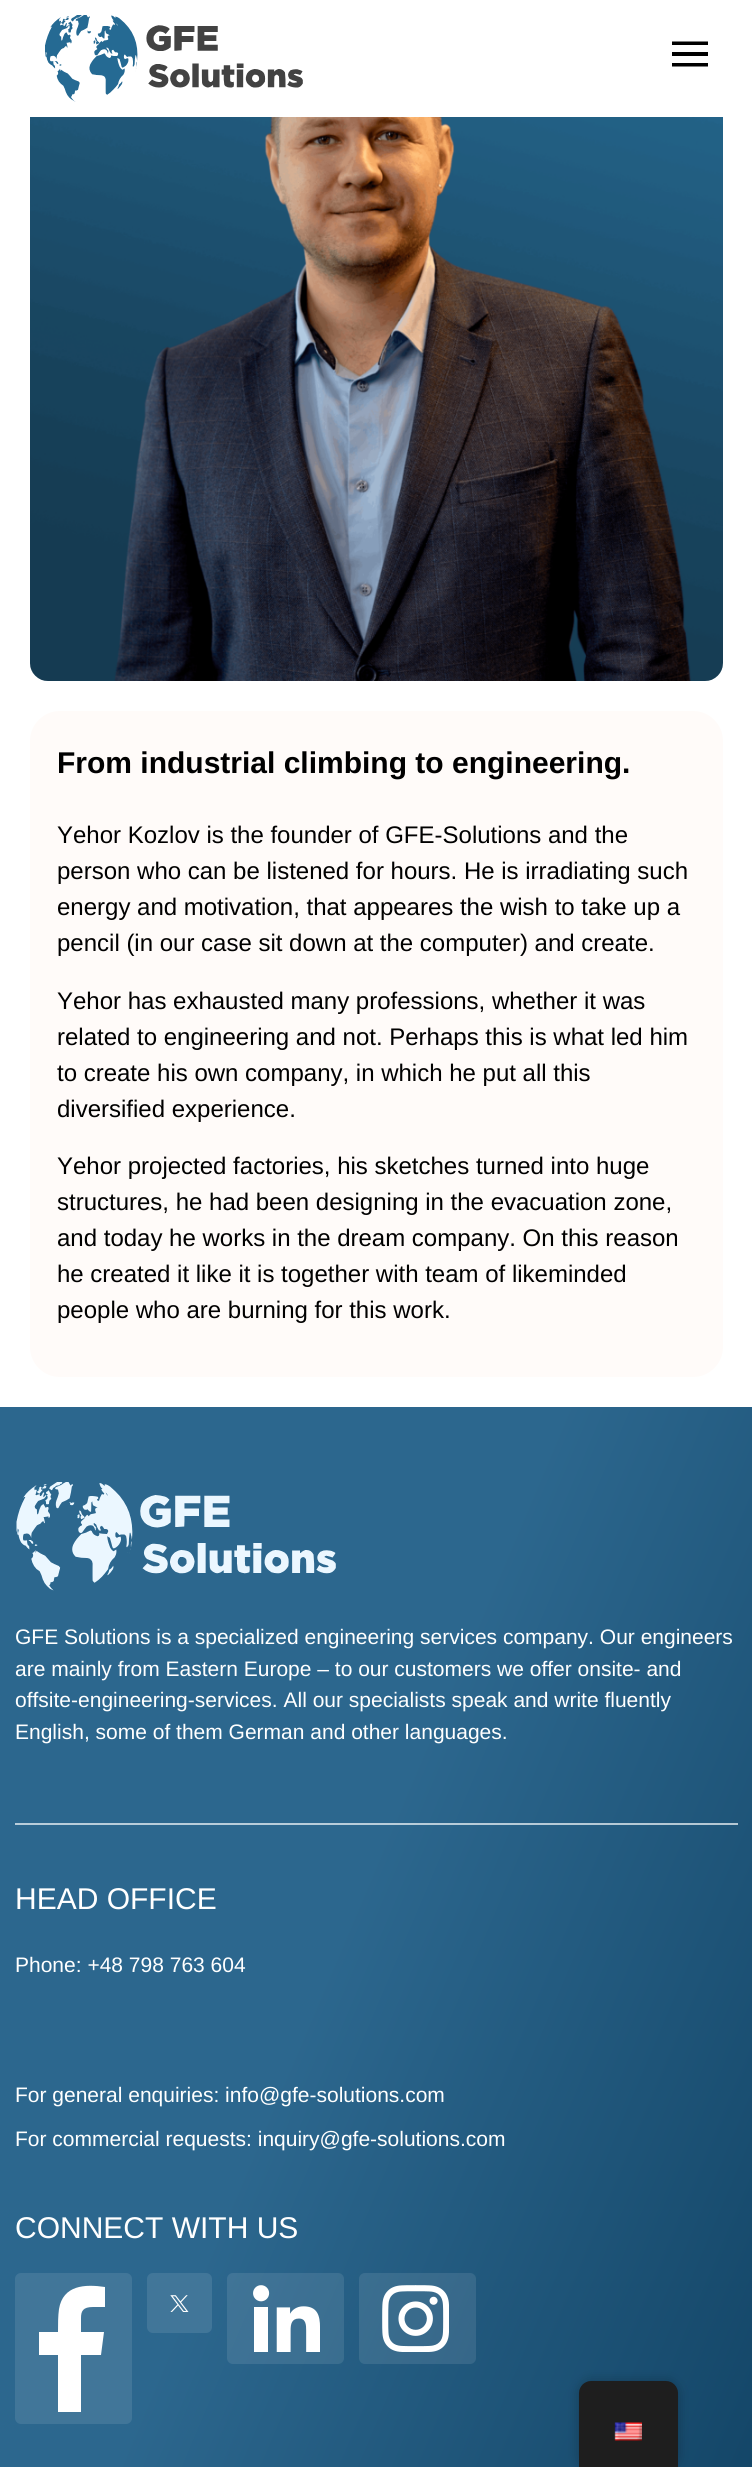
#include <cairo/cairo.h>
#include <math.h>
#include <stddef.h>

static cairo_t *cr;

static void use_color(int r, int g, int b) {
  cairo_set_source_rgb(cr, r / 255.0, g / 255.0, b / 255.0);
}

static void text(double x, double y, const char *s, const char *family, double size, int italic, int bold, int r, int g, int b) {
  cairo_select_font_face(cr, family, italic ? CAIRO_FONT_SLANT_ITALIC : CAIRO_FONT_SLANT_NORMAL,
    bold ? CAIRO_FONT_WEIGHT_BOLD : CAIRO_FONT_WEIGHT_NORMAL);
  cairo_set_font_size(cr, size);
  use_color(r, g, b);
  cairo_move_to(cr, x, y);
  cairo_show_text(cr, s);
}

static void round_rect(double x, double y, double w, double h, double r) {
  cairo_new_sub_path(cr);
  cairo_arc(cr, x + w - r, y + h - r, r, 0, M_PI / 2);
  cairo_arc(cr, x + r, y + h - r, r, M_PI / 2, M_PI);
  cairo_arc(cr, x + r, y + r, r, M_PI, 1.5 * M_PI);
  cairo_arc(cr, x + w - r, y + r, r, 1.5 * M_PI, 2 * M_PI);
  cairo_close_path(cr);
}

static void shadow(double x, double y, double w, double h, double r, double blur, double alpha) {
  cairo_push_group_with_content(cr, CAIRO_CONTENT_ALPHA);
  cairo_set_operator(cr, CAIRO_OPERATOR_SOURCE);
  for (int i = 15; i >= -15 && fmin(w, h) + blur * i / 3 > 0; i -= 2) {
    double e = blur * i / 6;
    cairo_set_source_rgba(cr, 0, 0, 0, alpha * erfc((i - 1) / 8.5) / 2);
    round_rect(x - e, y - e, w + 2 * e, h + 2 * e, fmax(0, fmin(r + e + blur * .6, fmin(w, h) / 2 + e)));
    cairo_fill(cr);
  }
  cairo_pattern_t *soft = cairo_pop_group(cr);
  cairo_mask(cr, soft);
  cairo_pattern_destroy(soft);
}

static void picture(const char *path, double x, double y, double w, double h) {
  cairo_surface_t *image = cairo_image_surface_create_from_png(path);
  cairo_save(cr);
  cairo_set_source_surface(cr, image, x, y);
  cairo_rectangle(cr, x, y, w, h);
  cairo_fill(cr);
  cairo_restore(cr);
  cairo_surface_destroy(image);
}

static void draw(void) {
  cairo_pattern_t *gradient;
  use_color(255, 255, 255);
  cairo_paint(cr);
  picture("img_01.png", 45, 15, 258, 87);
  use_color(0, 0, 0);
  cairo_new_path(cr);
  cairo_move_to(cr, 672, 41.5);
  cairo_line_to(cr, 672, 45);
  cairo_line_to(cr, 708, 45);
  cairo_line_to(cr, 708, 41.5);
  cairo_close_path(cr);
  cairo_move_to(cr, 672, 52);
  cairo_line_to(cr, 672, 56);
  cairo_line_to(cr, 708, 56);
  cairo_line_to(cr, 708, 52);
  cairo_close_path(cr);
  cairo_move_to(cr, 672, 63);
  cairo_line_to(cr, 672, 66.5);
  cairo_line_to(cr, 708, 66.5);
  cairo_line_to(cr, 708, 63);
  cairo_close_path(cr);
  cairo_fill(cr);
  picture("img_02.png", 30, 117, 693, 564);
  use_color(255, 251, 249);
  round_rect(30, 711, 693, 666, 30);
  cairo_fill(cr);
  gradient = cairo_pattern_create_linear(-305, 2125, 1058, 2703);
  cairo_pattern_add_color_stop_rgba(gradient, 0.35, 0.173, 0.404, 0.557, 1);
  cairo_pattern_add_color_stop_rgba(gradient, 0.97, 0.024, 0.204, 0.325, 1);
  cairo_set_source(cr, gradient);
  cairo_pattern_destroy(gradient);
  cairo_rectangle(cr, 0, 1407, 752, 1060);
  cairo_fill(cr);
  gradient = cairo_pattern_create_linear(-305, 2125, 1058, 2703);
  cairo_pattern_add_color_stop_rgba(gradient, 0.35, 0.725, 0.804, 0.855, 1);
  cairo_pattern_add_color_stop_rgba(gradient, 0.97, 0.678, 0.737, 0.776, 1);
  cairo_set_source(cr, gradient);
  cairo_pattern_destroy(gradient);
  cairo_rectangle(cr, 15, 1823, 723, 2);
  cairo_fill(cr);
  picture("img_03.png", 16, 1482, 320, 109);
  use_color(65, 118, 153);
  round_rect(15, 2273, 117, 151, 6);
  cairo_fill(cr);
  use_color(255, 255, 255);
  cairo_new_path(cr);
  cairo_move_to(cr, 81, 2412);
  cairo_line_to(cr, 81, 2355);
  cairo_line_to(cr, 101, 2355);
  cairo_line_to(cr, 104, 2332);
  cairo_line_to(cr, 81, 2332);
  cairo_line_to(cr, 81, 2318);
  cairo_curve_to(cr, 81, 2311, 83, 2307, 93, 2307);
  cairo_line_to(cr, 105, 2307);
  cairo_line_to(cr, 105, 2287);
  cairo_curve_to(cr, 85, 2284, 63, 2285, 59, 2309);
  cairo_curve_to(cr, 58, 2316, 58, 2324, 58, 2332);
  cairo_line_to(cr, 39, 2332);
  cairo_line_to(cr, 39, 2355);
  cairo_line_to(cr, 58, 2355);
  cairo_line_to(cr, 58, 2412);
  cairo_close_path(cr);
  cairo_fill(cr);
  use_color(65, 118, 153);
  round_rect(147, 2273, 65, 60, 6);
  cairo_fill(cr);
  picture("img_04.png", 170, 2295, 19, 17);
  cairo_set_source_rgba(cr, 1, 1, 1, 0.1);
  round_rect(227, 2273, 117, 91, 6);
  cairo_fill(cr);
  picture("img_05.png", 253, 2285, 67, 67);
  round_rect(359, 2273, 117, 91, 6);
  cairo_fill(cr);
  picture("img_06.png", 382, 2285, 67, 67);
  use_color(0, 0, 0);
  shadow(579, 2381, 99, 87, 12, 6, 0.25);
  use_color(30, 30, 30);
  cairo_new_path(cr);
  cairo_move_to(cr, 591, 2381);
  cairo_line_to(cr, 666, 2381);
  cairo_curve_to(cr, 672.5, 2381, 678, 2386.5, 678, 2393);
  cairo_line_to(cr, 678, 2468);
  cairo_line_to(cr, 579, 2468);
  cairo_line_to(cr, 579, 2393);
  cairo_curve_to(cr, 579, 2386.5, 584.5, 2381, 591, 2381);
  cairo_close_path(cr);
  cairo_fill(cr);
  picture("img_07.png", 614, 2422, 28, 19);
  text(57, 773, "From industrial climbing to engineering.", "Liberation Sans", 30, 0, 1, 0, 0, 0);
  text(57, 843, "Yehor Kozlov is the founder of GFE-Solutions and the", "Liberation Sans", 24, 0, 0, 0, 0, 0);
  text(57, 879, "person who can be listened for hours. He is irradiating such", "Liberation Sans", 24, 0, 0, 0, 0, 0);
  text(57, 915, "energy and motivation, that appeares the wish to take up a", "Liberation Sans", 24, 0, 0, 0, 0, 0);
  text(57, 951, "pencil (in our case sit down at the computer) and create.", "Liberation Sans", 24, 0, 0, 0, 0, 0);
  text(57, 1009, "Yehor has exhausted many professions, whether it was", "Liberation Sans", 24, 0, 0, 0, 0, 0);
  text(57, 1045, "related to engineering and not. Perhaps this is what led him", "Liberation Sans", 24, 0, 0, 0, 0, 0);
  text(57, 1081, "to create his own company, in which he put all this", "Liberation Sans", 24, 0, 0, 0, 0, 0);
  text(57, 1117, "diversified experience.", "Liberation Sans", 24, 0, 0, 0, 0, 0);
  text(57, 1174, "Yehor projected factories, his sketches turned into huge", "Liberation Sans", 24, 0, 0, 0, 0, 0);
  text(57, 1210, "structures, he had been designing in the evacuation zone,", "Liberation Sans", 24, 0, 0, 0, 0, 0);
  text(57, 1246, "and today he works in the dream company. On this reason", "Liberation Sans", 24, 0, 0, 0, 0, 0);
  text(57, 1282, "he created it like it is together with team of likeminded", "Liberation Sans", 24, 0, 0, 0, 0, 0);
  text(57, 1318, "people who are burning for this work.", "Liberation Sans", 24, 0, 0, 0, 0, 0);
  text(15, 1644, "GFE Solutions is a specialized engineering services company. Our engineers", "Liberation Sans", 21, 0, 0, 255, 255, 255);
  text(15, 1676, "are mainly from Eastern Europe – to our customers we offer onsite- and", "Liberation Sans", 21, 0, 0, 255, 255, 255);
  text(15, 1707, "offsite-engineering-services. All our specialists speak and write fluently", "Liberation Sans", 21, 0, 0, 255, 255, 255);
  text(15, 1739, "English, some of them German and other languages.", "Liberation Sans", 21, 0, 0, 255, 255, 255);
  text(15, 1909, "HEAD OFFICE", "Liberation Sans", 30, 0, 0, 255, 255, 255);
  text(15, 1972, "Phone: +48 798 763 604", "Liberation Sans", 21, 0, 0, 255, 255, 255);
  text(15, 2102, "For general enquiries: info@gfe-solutions.com", "Liberation Sans", 21, 0, 0, 255, 255, 255);
  text(15, 2146, "For commercial requests: inquiry@gfe-solutions.com", "Liberation Sans", 21, 0, 0, 255, 255, 255);
  text(15, 2238, "CONNECT WITH US", "Liberation Sans", 30, 0, 0, 255, 255, 255);
}

int main(void) {
  cairo_surface_t *surface = cairo_image_surface_create(CAIRO_FORMAT_RGB24, 752, 2467);
  cr = cairo_create(surface);
  cairo_font_options_t *options = cairo_font_options_create();
  cairo_font_options_set_hint_metrics(options, CAIRO_HINT_METRICS_OFF);
  cairo_font_options_set_hint_style(options, CAIRO_HINT_STYLE_NONE);
  cairo_set_font_options(cr, options);
  cairo_set_miter_limit(cr, 4);
  draw();
  cairo_surface_write_to_png(surface, "out.png");
  cairo_font_options_destroy(options);
  cairo_destroy(cr);
  cairo_surface_destroy(surface);
  return 0;
}
